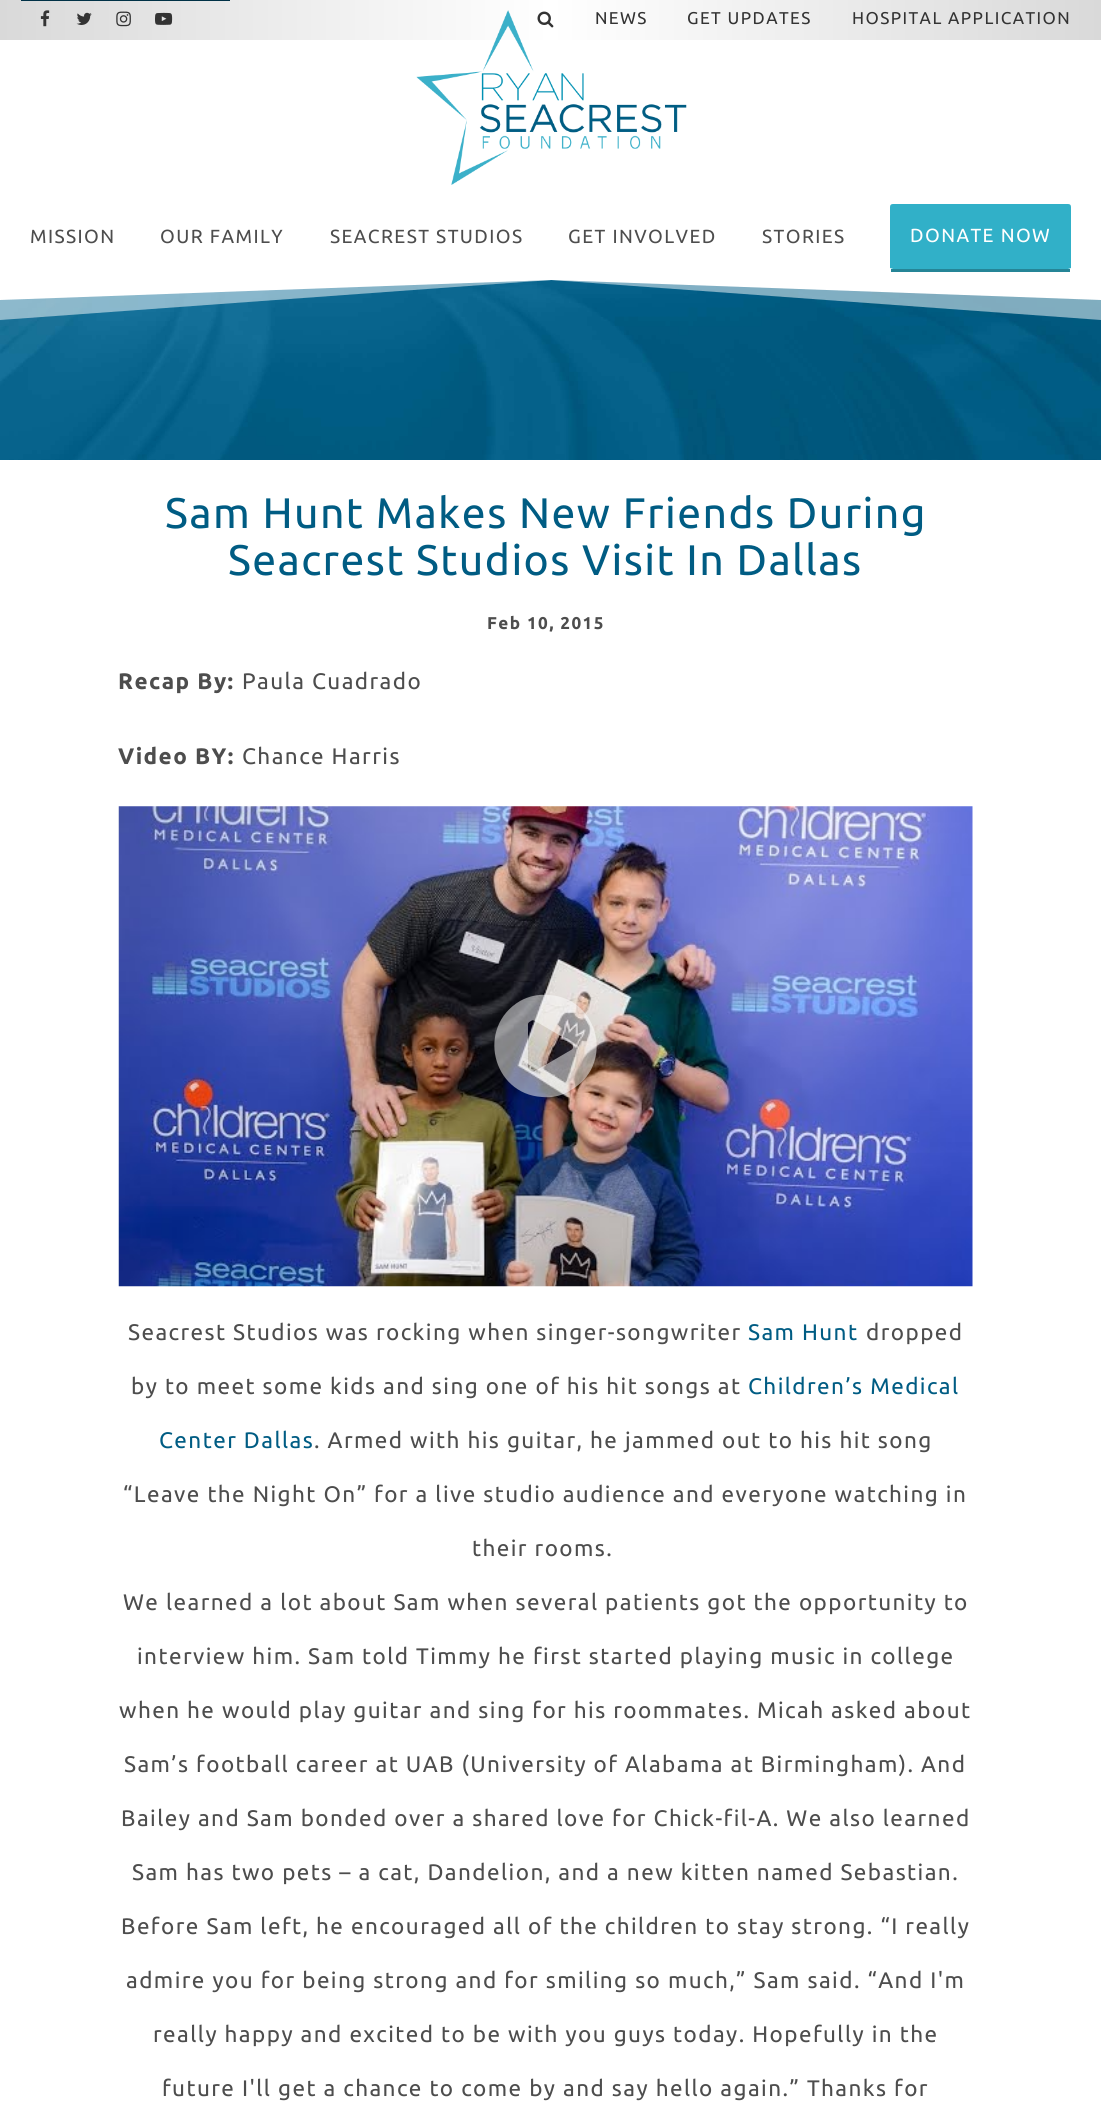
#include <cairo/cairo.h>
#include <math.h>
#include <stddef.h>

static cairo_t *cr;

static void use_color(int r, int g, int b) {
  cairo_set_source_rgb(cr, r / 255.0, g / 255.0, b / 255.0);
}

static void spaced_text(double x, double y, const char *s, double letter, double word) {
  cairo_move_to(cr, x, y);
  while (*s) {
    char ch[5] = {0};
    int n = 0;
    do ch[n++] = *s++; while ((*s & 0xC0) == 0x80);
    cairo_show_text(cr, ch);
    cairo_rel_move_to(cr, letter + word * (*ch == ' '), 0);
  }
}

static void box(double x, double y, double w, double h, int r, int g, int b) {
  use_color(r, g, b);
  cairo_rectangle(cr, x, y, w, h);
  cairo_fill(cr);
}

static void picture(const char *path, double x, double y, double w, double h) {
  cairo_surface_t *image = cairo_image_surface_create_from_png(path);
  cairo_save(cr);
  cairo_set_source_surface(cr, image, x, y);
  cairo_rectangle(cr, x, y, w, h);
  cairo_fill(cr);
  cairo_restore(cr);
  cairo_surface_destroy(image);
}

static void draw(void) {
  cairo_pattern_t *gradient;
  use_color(255, 255, 255);
  cairo_paint(cr);
  gradient = cairo_pattern_create_linear(1101, 20, 0, 20);
  cairo_pattern_add_color_stop_rgba(gradient, 0, 0.851, 0.851, 0.851, 1);
  cairo_pattern_add_color_stop_rgba(gradient, 0.5, 1, 1, 1, 1);
  cairo_pattern_add_color_stop_rgba(gradient, 1, 0.851, 0.851, 0.851, 1);
  cairo_set_source(cr, gradient);
  cairo_pattern_destroy(gradient);
  cairo_rectangle(cr, 0, 0, 1101, 40);
  cairo_fill(cr);
  box(21, 0, 209, 1, 0, 49, 70);
  picture("img_02.png", 40, 10, 10, 17);
  picture("img_03.png", 76, 12, 16, 13);
  picture("img_04.png", 116, 11, 15, 16);
  picture("img_05.png", 155, 12, 18, 13);
  picture("img_06.png", 537, 11, 17, 17);
  use_color(49, 176, 200);
  cairo_new_path(cr);
  cairo_move_to(cr, 893, 204);
  cairo_line_to(cr, 1068, 204);
  cairo_curve_to(cr, 1070, 204, 1071, 205, 1071, 207);
  cairo_line_to(cr, 1071, 268);
  cairo_line_to(cr, 1068, 269);
  cairo_line_to(cr, 893, 269);
  cairo_line_to(cr, 890, 268);
  cairo_line_to(cr, 890, 207);
  cairo_curve_to(cr, 890, 205, 891, 204, 893, 204);
  cairo_close_path(cr);
  cairo_fill(cr);
  box(891, 269, 179, 3, 37, 133, 151);
  picture("img_07.png", 0, 280, 1101, 180);
  cairo_set_source_rgba(cr, 1, 1, 1, 0.5);
  cairo_new_path(cr);
  cairo_move_to(cr, 0, 320);
  cairo_line_to(cr, 551, 280);
  cairo_line_to(cr, 1101, 320);
  cairo_line_to(cr, 1101, 280);
  cairo_line_to(cr, 0, 280);
  cairo_close_path(cr);
  cairo_fill(cr);
  use_color(255, 255, 255);
  cairo_new_path(cr);
  cairo_move_to(cr, 0, 300);
  cairo_line_to(cr, 551, 280);
  cairo_line_to(cr, 1101, 300);
  cairo_line_to(cr, 1101, 280);
  cairo_line_to(cr, 0, 280);
  cairo_close_path(cr);
  cairo_fill(cr);
  picture("img_08.png", 118, 806, 855, 481);
  cairo_set_source_rgba(cr, 1, 1, 1, 0.5);
  cairo_new_path(cr);
  cairo_move_to(cr, 520, 1001);
  cairo_curve_to(cr, 529, 996, 539, 994, 549, 995);
  cairo_curve_to(cr, 599, 998, 615, 1065, 571, 1090);
  cairo_curve_to(cr, 562, 1096, 552, 1098, 542, 1097);
  cairo_curve_to(cr, 492, 1094, 476, 1027, 520, 1001);
  cairo_close_path(cr);
  cairo_move_to(cr, 571, 1050);
  cairo_curve_to(cr, 573, 1049, 573, 1048, 573, 1046);
  cairo_curve_to(cr, 573, 1044, 573, 1043, 571, 1042);
  cairo_line_to(cr, 535, 1021);
  cairo_curve_to(cr, 533, 1020, 532, 1020, 531, 1021);
  cairo_curve_to(cr, 529, 1022, 528, 1023, 528, 1024);
  cairo_line_to(cr, 528, 1067);
  cairo_curve_to(cr, 528, 1069, 529, 1070, 531, 1071);
  cairo_line_to(cr, 533, 1072);
  cairo_line_to(cr, 535, 1071);
  cairo_close_path(cr);
  cairo_fill(cr);
  cairo_select_font_face(cr, "Ubuntu", CAIRO_FONT_SLANT_NORMAL, CAIRO_FONT_WEIGHT_NORMAL);
  cairo_set_font_size(cr, 17.1);
  use_color(51, 51, 51);
  spaced_text(595, 24, "NEWS", 1.42, 0);
  picture("img_01.png", 416, 10, 271, 175);
  spaced_text(687, 24, "GET UPDATES", 1.42, 0);
  spaced_text(852, 24, "HOSPITAL APPLICATION", 1.42, 0);
  cairo_set_font_size(cr, 19);
  use_color(77, 77, 77);
  spaced_text(30, 243, "MISSION", 1.42, 0);
  spaced_text(160, 243, "OUR FAMILY", 1.42, 0);
  spaced_text(330, 243, "SEACREST STUDIOS", 1.42, 0);
  spaced_text(568, 243, "GET INVOLVED", 1.42, 0);
  spaced_text(762, 243, "STORIES", 1.42, 0);
  use_color(255, 255, 255);
  spaced_text(910, 242, "DONATE NOW", 1.42, 0);
  cairo_set_font_size(cr, 42.75);
  use_color(0, 92, 131);
  spaced_text(165, 528, "Sam Hunt Makes New Friends During", 1.42, 0);
  spaced_text(228, 575, "Seacrest Studios Visit In Dallas", 1.42, 0);
  cairo_select_font_face(cr, "Ubuntu", CAIRO_FONT_SLANT_NORMAL, CAIRO_FONT_WEIGHT_BOLD);
  cairo_set_font_size(cr, 17.1);
  use_color(77, 77, 77);
  spaced_text(487, 629, "Feb 10, 2015", 1.42, 0);
  cairo_set_font_size(cr, 22.5);
  spaced_text(118, 689, "Recap By:", 1.42, 0);
  cairo_select_font_face(cr, "Ubuntu", CAIRO_FONT_SLANT_NORMAL, CAIRO_FONT_WEIGHT_NORMAL);
  spaced_text(242, 689, "Paula Cuadrado", 1.42, 0);
  cairo_select_font_face(cr, "Ubuntu", CAIRO_FONT_SLANT_NORMAL, CAIRO_FONT_WEIGHT_BOLD);
  spaced_text(118, 764, "Video BY:", 1.42, 0);
  cairo_select_font_face(cr, "Ubuntu", CAIRO_FONT_SLANT_NORMAL, CAIRO_FONT_WEIGHT_NORMAL);
  spaced_text(242, 764, "Chance Harris", 1.42, 0);
  spaced_text(128, 1340, "Seacrest Studios was rocking when singer-songwriter", 1.42, 0);
  use_color(0, 92, 131);
  spaced_text(748, 1340, "Sam Hunt", 1.42, 0);
  use_color(77, 77, 77);
  spaced_text(866, 1340, "dropped", 1.42, 0);
  spaced_text(131, 1394, "by to meet some kids and sing one of his hit songs at", 1.42, 0);
  use_color(0, 92, 131);
  spaced_text(748, 1394, "Children’s Medical", 1.42, 0);
  spaced_text(159, 1448, "Center Dallas", 1.42, 0);
  use_color(77, 77, 77);
  spaced_text(314, 1448, ". Armed with his guitar, he jammed out to his hit song", 1.42, 0);
  spaced_text(123, 1502, "“Leave the Night On” for a live studio audience and everyone watching in", 1.42, 0);
  spaced_text(472, 1556, "their rooms.", 1.42, 0);
  spaced_text(123, 1610, "We learned a lot about Sam when several patients got the opportunity to", 1.42, 0);
  spaced_text(137, 1664, "interview him. Sam told Timmy he first started playing music in college", 1.42, 0);
  spaced_text(119, 1718, "when he would play guitar and sing for his roommates. Micah asked about", 1.42, 0);
  spaced_text(124, 1772, "Sam’s football career at UAB (University of Alabama at Birmingham). And", 1.42, 0);
  spaced_text(121, 1826, "Bailey and Sam bonded over a shared love for Chick-fil-A. We also learned", 1.42, 0);
  spaced_text(132, 1880, "Sam has two pets – a cat, Dandelion, and a new kitten named Sebastian.", 1.42, 0);
  spaced_text(121, 1934, "Before Sam left, he encouraged all of the children to stay strong. “I really", 1.42, 0);
  spaced_text(126, 1988, "admire you for being strong and for smiling so much,” Sam said. “And I'm", 1.42, 0);
  spaced_text(153, 2042, "really happy and excited to be with you guys today. Hopefully in the", 1.42, 0);
  spaced_text(162, 2096, "future I'll get a chance to come by and say hello again.” Thanks for", 1.42, 0);
}

int main(void) {
  cairo_surface_t *surface = cairo_image_surface_create(CAIRO_FORMAT_RGB24, 1101, 2115);
  cr = cairo_create(surface);
  cairo_font_options_t *options = cairo_font_options_create();
  cairo_font_options_set_hint_metrics(options, CAIRO_HINT_METRICS_OFF);
  cairo_font_options_set_hint_style(options, CAIRO_HINT_STYLE_NONE);
  cairo_set_font_options(cr, options);
  cairo_set_miter_limit(cr, 4);
  draw();
  cairo_surface_write_to_png(surface, "out.png");
  cairo_font_options_destroy(options);
  cairo_destroy(cr);
  cairo_surface_destroy(surface);
  return 0;
}
